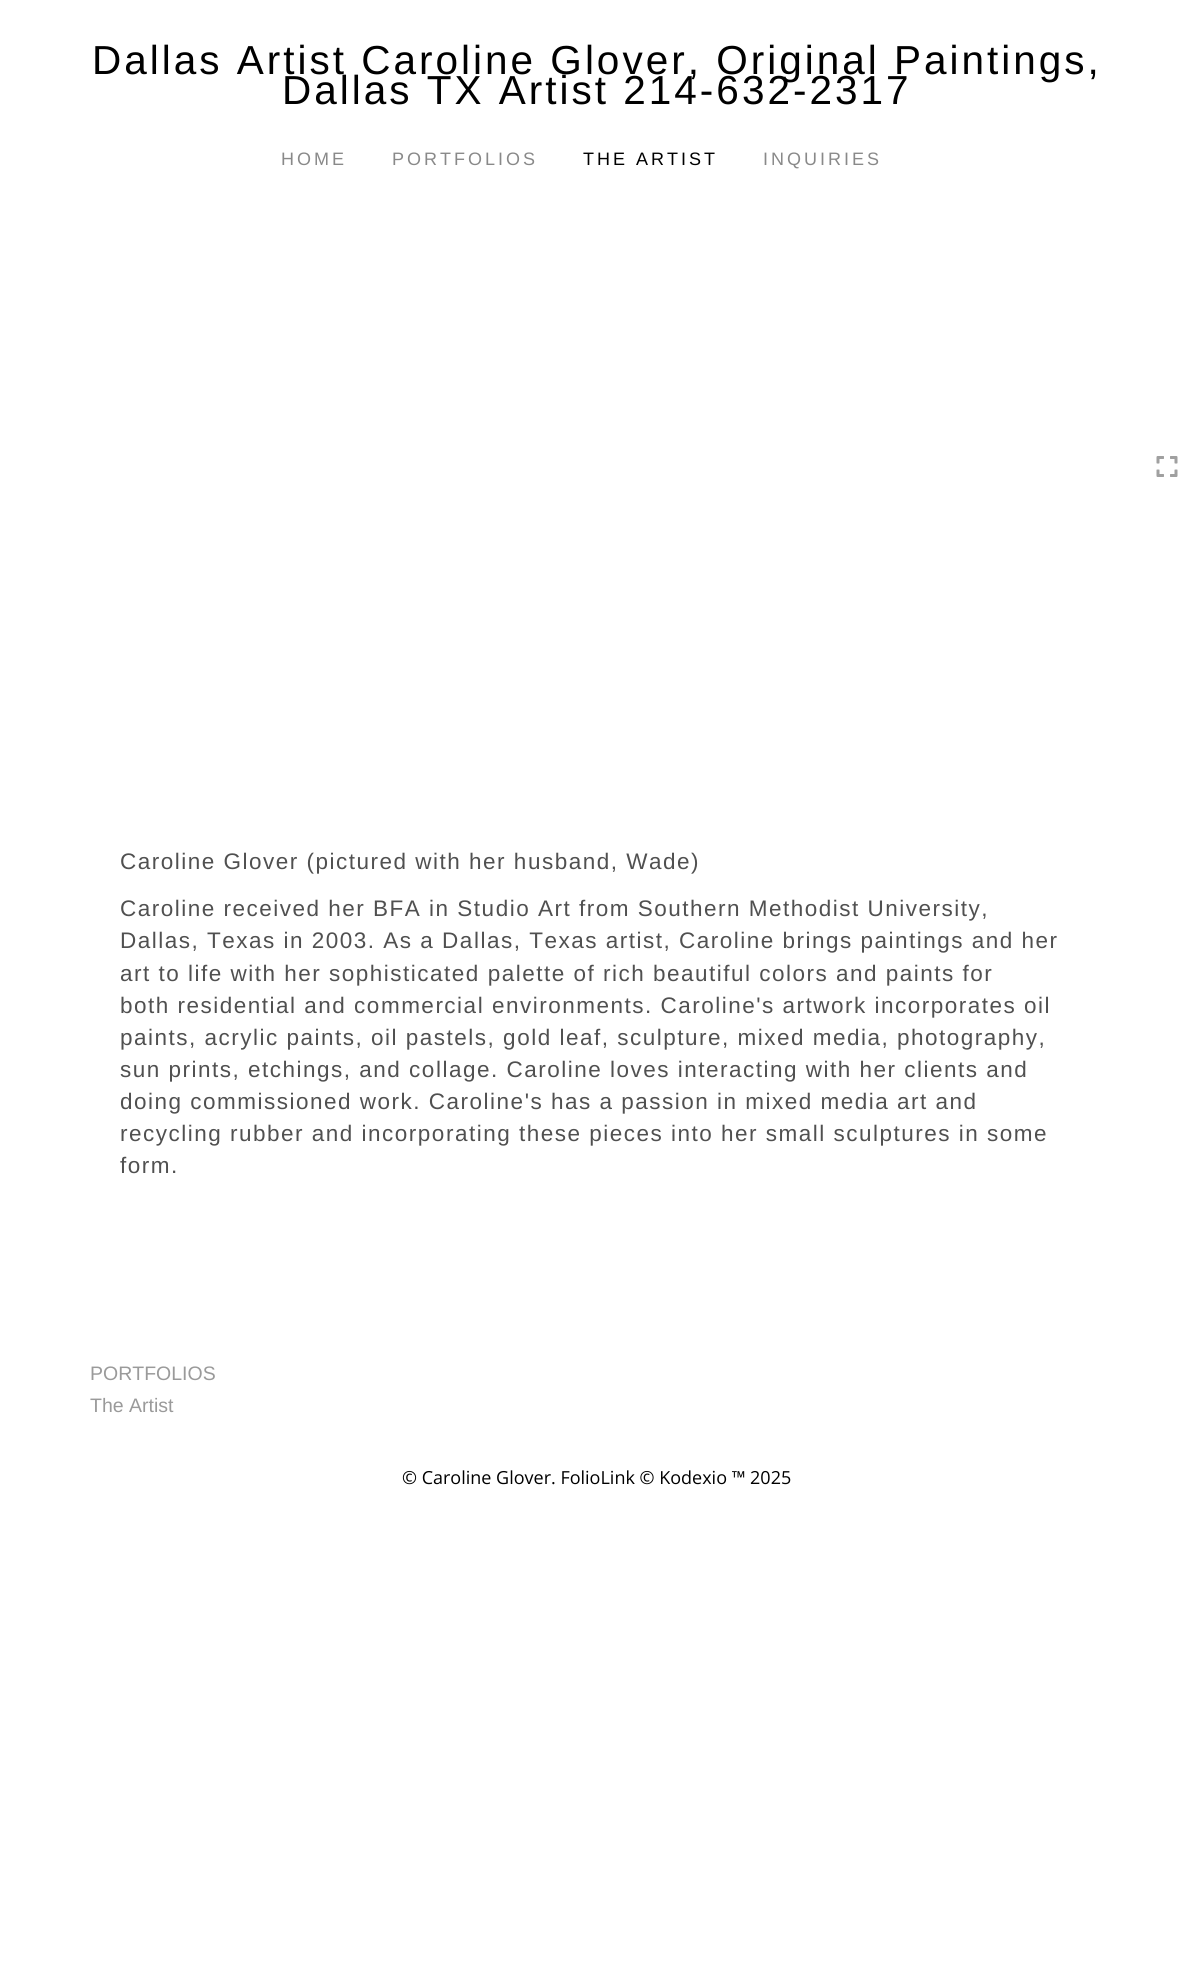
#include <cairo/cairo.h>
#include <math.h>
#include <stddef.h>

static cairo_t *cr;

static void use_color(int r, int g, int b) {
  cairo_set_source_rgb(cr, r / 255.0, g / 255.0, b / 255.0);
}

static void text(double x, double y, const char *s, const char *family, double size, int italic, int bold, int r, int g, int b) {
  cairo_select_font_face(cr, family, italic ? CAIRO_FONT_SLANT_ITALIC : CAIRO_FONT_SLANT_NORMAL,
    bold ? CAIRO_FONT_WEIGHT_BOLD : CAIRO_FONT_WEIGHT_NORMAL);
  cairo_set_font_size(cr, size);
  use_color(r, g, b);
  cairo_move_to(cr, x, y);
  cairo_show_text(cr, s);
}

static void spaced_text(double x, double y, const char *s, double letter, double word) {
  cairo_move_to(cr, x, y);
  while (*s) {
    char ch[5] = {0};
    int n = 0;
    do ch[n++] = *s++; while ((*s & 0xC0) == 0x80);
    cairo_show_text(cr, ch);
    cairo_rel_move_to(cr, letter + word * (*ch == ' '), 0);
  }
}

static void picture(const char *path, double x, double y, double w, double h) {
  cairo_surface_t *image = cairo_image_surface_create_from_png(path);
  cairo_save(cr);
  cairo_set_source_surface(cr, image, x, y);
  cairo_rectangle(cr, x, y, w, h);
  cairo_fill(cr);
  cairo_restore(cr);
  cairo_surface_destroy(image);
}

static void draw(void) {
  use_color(255, 255, 255);
  cairo_paint(cr);
  picture("img_01.png", 1156, 456, 22, 21);
  cairo_select_font_face(cr, "Liberation Sans", CAIRO_FONT_SLANT_NORMAL, CAIRO_FONT_WEIGHT_NORMAL);
  cairo_set_font_size(cr, 40.5);
  use_color(0, 0, 0);
  spaced_text(92, 74, "Dallas Artist Caroline Glover, Original Paintings,", 3, 0);
  spaced_text(282, 104, "Dallas TX Artist 214-632-2317", 3, 0);
  cairo_set_font_size(cr, 18);
  use_color(137, 137, 137);
  spaced_text(281, 165, "HOME", 3, 0);
  spaced_text(392, 165, "PORTFOLIOS", 3, 0);
  use_color(0, 0, 0);
  spaced_text(583, 165, "THE ARTIST", 3, 0);
  use_color(137, 137, 137);
  spaced_text(763, 165, "INQUIRIES", 3, 0);
  cairo_set_font_size(cr, 22.5);
  use_color(80, 80, 80);
  spaced_text(120, 869, "Caroline Glover (pictured with her husband, Wade)", 1.5, 0);
  spaced_text(120, 916, "Caroline received her BFA in Studio Art from Southern Methodist University,", 1.5, 0);
  spaced_text(120, 948, "Dallas, Texas in 2003. As a Dallas, Texas artist, Caroline brings paintings and her", 1.5, 0);
  spaced_text(120, 981, "art to life with her sophisticated palette of rich beautiful colors and paints for", 1.5, 0);
  spaced_text(120, 1013, "both residential and commercial environments. Caroline's artwork incorporates oil", 1.5, 0);
  spaced_text(120, 1045, "paints, acrylic paints, oil pastels, gold leaf, sculpture, mixed media, photography,", 1.5, 0);
  spaced_text(120, 1077, "sun prints, etchings, and collage. Caroline loves interacting with her clients and", 1.5, 0);
  spaced_text(120, 1109, "doing commissioned work. Caroline's has a passion in mixed media art and", 1.5, 0);
  spaced_text(120, 1141, "recycling rubber and incorporating these pieces into her small sculptures in some", 1.5, 0);
  spaced_text(120, 1173, "form.", 1.5, 0);
  text(90, 1380, "PORTFOLIOS", "Liberation Sans", 19.5, 0, 0, 154, 154, 154);
  text(90, 1412, "The Artist", "Liberation Sans", 19.5, 0, 0, 154, 154, 154);
  text(402, 1484, "© Caroline Glover. FolioLink © Kodexio ™ 2025", "Open Sans", 18, 0, 0, 0, 0, 0);
}

int main(void) {
  cairo_surface_t *surface = cairo_image_surface_create(CAIRO_FORMAT_RGB24, 1193, 1986);
  cr = cairo_create(surface);
  cairo_font_options_t *options = cairo_font_options_create();
  cairo_font_options_set_hint_metrics(options, CAIRO_HINT_METRICS_OFF);
  cairo_font_options_set_hint_style(options, CAIRO_HINT_STYLE_NONE);
  cairo_set_font_options(cr, options);
  cairo_set_miter_limit(cr, 4);
  draw();
  cairo_surface_write_to_png(surface, "out.png");
  cairo_font_options_destroy(options);
  cairo_destroy(cr);
  cairo_surface_destroy(surface);
  return 0;
}
